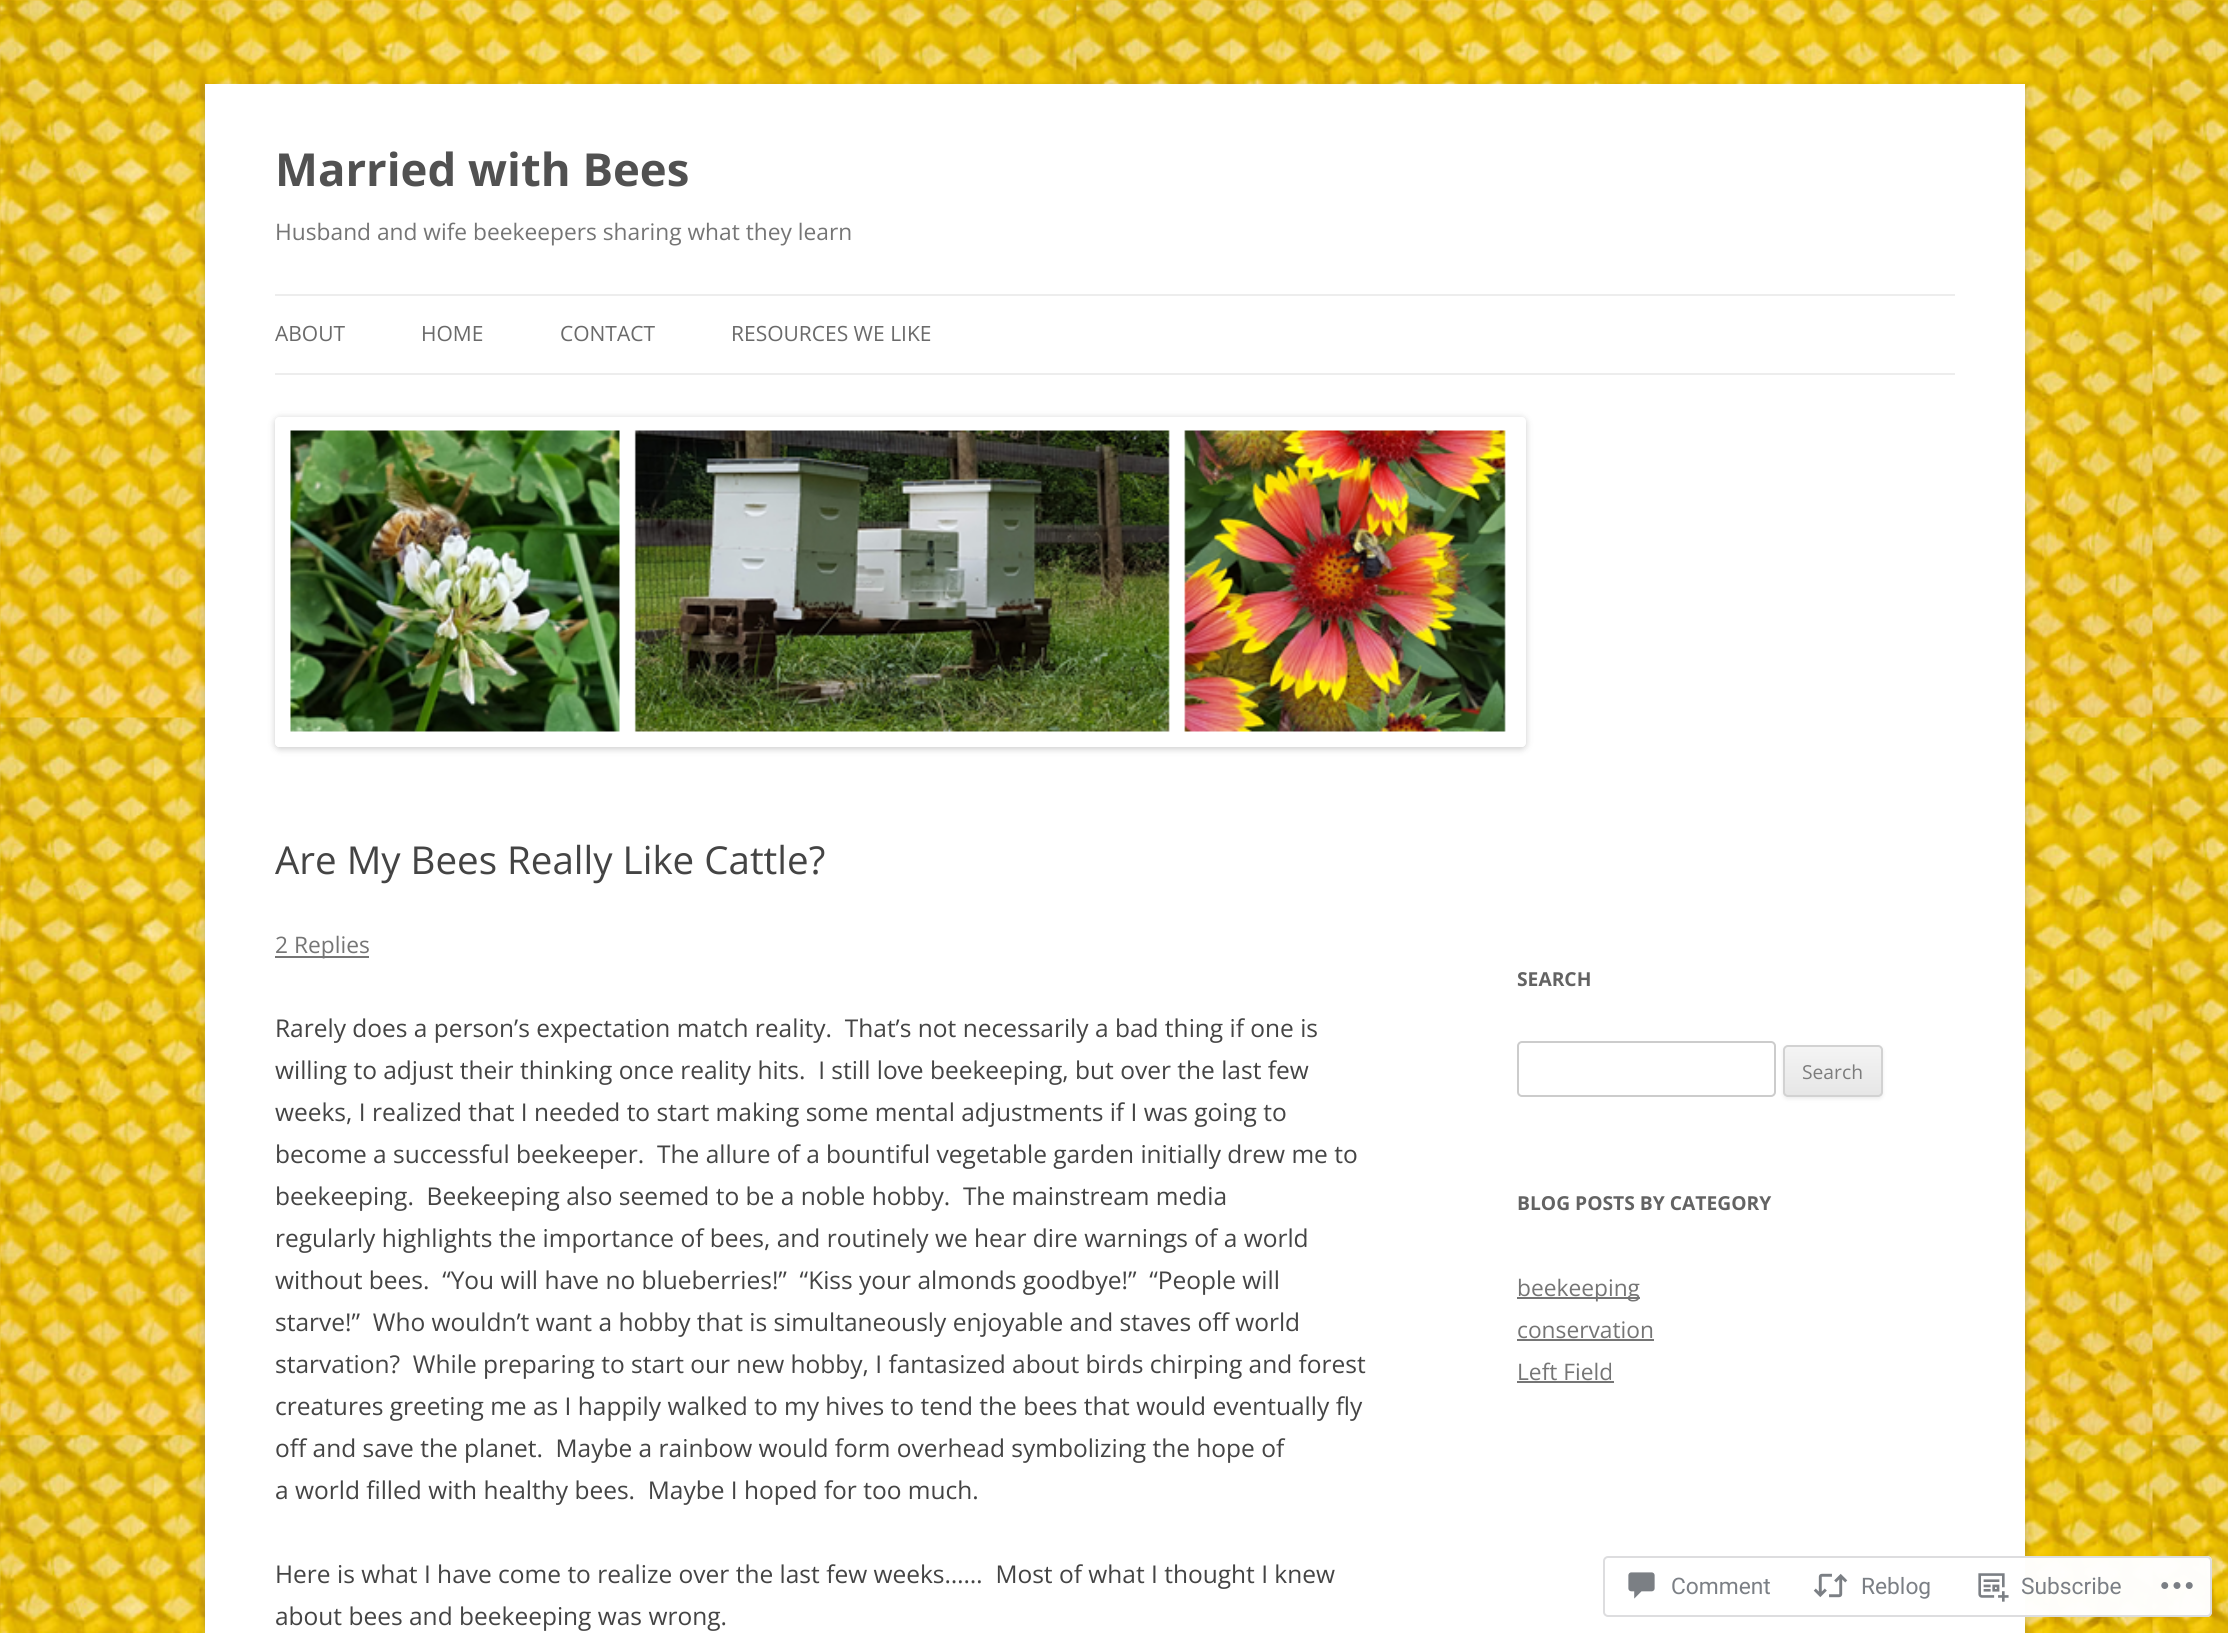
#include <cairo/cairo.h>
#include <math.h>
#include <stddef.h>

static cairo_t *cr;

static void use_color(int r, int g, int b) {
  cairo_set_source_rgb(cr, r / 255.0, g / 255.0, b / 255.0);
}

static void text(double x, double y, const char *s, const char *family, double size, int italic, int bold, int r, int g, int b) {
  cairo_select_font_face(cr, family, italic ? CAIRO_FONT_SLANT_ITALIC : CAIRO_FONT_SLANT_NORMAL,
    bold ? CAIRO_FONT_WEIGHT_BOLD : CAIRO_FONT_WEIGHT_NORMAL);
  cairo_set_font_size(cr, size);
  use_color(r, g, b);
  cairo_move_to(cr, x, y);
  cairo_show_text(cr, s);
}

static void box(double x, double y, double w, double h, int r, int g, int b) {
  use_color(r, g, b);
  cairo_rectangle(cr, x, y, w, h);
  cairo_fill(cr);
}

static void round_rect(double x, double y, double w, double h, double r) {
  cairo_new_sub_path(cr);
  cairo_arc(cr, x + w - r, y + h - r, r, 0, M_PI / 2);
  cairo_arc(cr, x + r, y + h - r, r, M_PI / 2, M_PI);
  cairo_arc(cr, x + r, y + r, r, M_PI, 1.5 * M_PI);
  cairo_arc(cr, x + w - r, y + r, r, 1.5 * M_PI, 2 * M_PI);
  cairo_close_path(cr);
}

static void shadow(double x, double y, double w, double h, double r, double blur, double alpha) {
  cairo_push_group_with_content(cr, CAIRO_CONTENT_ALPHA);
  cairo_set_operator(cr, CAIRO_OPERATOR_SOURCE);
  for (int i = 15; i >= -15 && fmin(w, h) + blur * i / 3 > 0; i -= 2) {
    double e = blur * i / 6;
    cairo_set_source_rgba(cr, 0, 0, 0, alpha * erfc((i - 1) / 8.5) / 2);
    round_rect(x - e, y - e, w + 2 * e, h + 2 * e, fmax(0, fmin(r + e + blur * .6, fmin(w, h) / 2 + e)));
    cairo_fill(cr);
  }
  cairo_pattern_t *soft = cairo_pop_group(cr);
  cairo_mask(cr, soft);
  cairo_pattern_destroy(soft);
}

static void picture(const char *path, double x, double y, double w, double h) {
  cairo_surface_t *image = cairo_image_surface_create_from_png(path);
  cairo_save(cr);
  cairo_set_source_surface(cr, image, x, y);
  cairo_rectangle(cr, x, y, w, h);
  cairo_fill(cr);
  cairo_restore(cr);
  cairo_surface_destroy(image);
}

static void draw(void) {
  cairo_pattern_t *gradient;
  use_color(255, 255, 255);
  cairo_paint(cr);
  picture("img_01.png", 0, 0, 2228, 1633);
  use_color(100, 100, 100);
  shadow(205, 88, 1820, 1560, 0, 5, 0.3);
  box(205, 84, 1820, 1549, 255, 255, 255);
  box(275, 294, 1680, 2, 237, 237, 237);
  box(275, 373, 1680, 2, 237, 237, 237);
  cairo_save(cr);
  cairo_set_fill_rule(cr, CAIRO_FILL_RULE_EVEN_ODD);
  cairo_new_path(cr);
  cairo_move_to(cr, 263, 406);
  cairo_line_to(cr, 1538, 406);
  cairo_line_to(cr, 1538, 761);
  cairo_line_to(cr, 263, 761);
  cairo_close_path(cr);
  cairo_move_to(cr, 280, 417);
  cairo_line_to(cr, 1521, 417);
  cairo_curve_to(cr, 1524, 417, 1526, 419, 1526, 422);
  cairo_line_to(cr, 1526, 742);
  cairo_curve_to(cr, 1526, 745, 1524, 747, 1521, 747);
  cairo_line_to(cr, 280, 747);
  cairo_curve_to(cr, 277, 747, 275, 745, 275, 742);
  cairo_line_to(cr, 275, 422);
  cairo_curve_to(cr, 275, 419, 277, 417, 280, 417);
  cairo_close_path(cr);
  cairo_clip(cr);
  use_color(0, 0, 0);
  shadow(275, 418, 1251, 331, 5, 3.5, 0.2);
  cairo_restore(cr);
  picture("img_02.png", 275, 430, 1251, 317);
  box(275, 956, 94, 2, 117, 117, 117);
  round_rect(1518, 1042, 257, 54, 4);
  use_color(204, 204, 204);
  cairo_stroke(cr);
  use_color(64, 64, 64);
  shadow(1783, 1047, 100, 52, 5, 2, 0.1);
  cairo_save(cr);
  round_rect(1783, 1045, 100, 52, 5);
  cairo_clip(cr);
  gradient = cairo_pattern_create_linear(1833, 1047, 1833, 1096);
  cairo_pattern_add_color_stop_rgba(gradient, 0, 0.957, 0.957, 0.957, 1);
  cairo_pattern_add_color_stop_rgba(gradient, 1, 0.902, 0.902, 0.902, 1);
  cairo_set_source(cr, gradient);
  cairo_pattern_destroy(gradient);
  cairo_rectangle(cr, 1783, 1047, 100, 49);
  cairo_fill(cr);
  cairo_restore(cr);
  round_rect(1784, 1046, 98, 50, 4);
  use_color(210, 210, 210);
  cairo_stroke(cr);
  box(1517, 1297, 123, 2, 117, 117, 117);
  box(1517, 1339, 137, 2, 117, 117, 117);
  box(1517, 1381, 97, 2, 117, 117, 117);
  cairo_set_source_rgba(cr, 1, 1, 1, 0.98);
  round_rect(1603, 1556, 609, 61, 5);
  cairo_fill(cr);
  round_rect(1604, 1557, 607, 59, 4);
  cairo_set_source_rgba(cr, 0.863, 0.863, 0.871, 0.98);
  cairo_stroke(cr);
  picture("img_03.png", 1628, 1572, 27, 27);
  picture("img_04.png", 1813, 1573, 35, 25);
  picture("img_05.png", 1978, 1573, 31, 29);
  picture("img_06.png", 2161, 1582, 32, 7);
  text(275, 186, "Married with Bees", "Open Sans", 45.5, 0, 1, 81, 81, 81);
  text(275, 240, "Husband and wife beekeepers sharing what they learn", "Open Sans", 22.75, 0, 0, 117, 117, 117);
  text(275, 341, "ABOUT", "Open Sans", 21, 0, 0, 106, 106, 106);
  text(421, 341, "HOME", "Open Sans", 21, 0, 0, 106, 106, 106);
  text(560, 341, "CONTACT", "Open Sans", 21, 0, 0, 106, 106, 106);
  text(731, 341, "RESOURCES WE LIKE", "Open Sans", 21, 0, 0, 106, 106, 106);
  text(275, 874, "Are My Bees Really Like Cattle?", "Open Sans", 38.5, 0, 0, 68, 68, 68);
  text(275, 953, "2 Replies", "Open Sans", 22.75, 0, 0, 117, 117, 117);
  text(275, 1037, "Rarely does a person’s expectation match reality.  That’s not necessarily a bad thing if one is", "Open Sans", 24.5, 0, 0, 68, 68, 68);
  text(275, 1079, "willing to adjust their thinking once reality hits.  I still love beekeeping, but over the last few", "Open Sans", 24.5, 0, 0, 68, 68, 68);
  text(275, 1121, "weeks, I realized that I needed to start making some mental adjustments if I was going to", "Open Sans", 24.5, 0, 0, 68, 68, 68);
  text(275, 1163, "become a successful beekeeper.", "Open Sans", 24.5, 0, 0, 68, 68, 68);
  text(657, 1163, "The allure of a bountiful vegetable garden initially drew me to", "Open Sans", 24.5, 0, 0, 68, 68, 68);
  text(275, 1205, "beekeeping.  Beekeeping also seemed to be a noble hobby.  The mainstream media", "Open Sans", 24.5, 0, 0, 68, 68, 68);
  text(275, 1247, "regularly highlights the importance of bees, and routinely we hear dire warnings of a world", "Open Sans", 24.5, 0, 0, 68, 68, 68);
  text(275, 1289, "without bees.  “You will have no blueberries!”  “Kiss your almonds goodbye!”  “People will", "Open Sans", 24.5, 0, 0, 68, 68, 68);
  text(275, 1331, "starve!”  Who wouldn’t want a hobby that is simultaneously enjoyable and staves off world", "Open Sans", 24.5, 0, 0, 68, 68, 68);
  text(275, 1373, "starvation?  While preparing to start our new hobby, I fantasized about birds chirping and forest", "Open Sans", 24.5, 0, 0, 68, 68, 68);
  text(275, 1415, "creatures greeting me as I happily walked to my hives to tend the bees that would eventually fly", "Open Sans", 24.5, 0, 0, 68, 68, 68);
  text(275, 1457, "off and save the planet.  Maybe a rainbow would form overhead symbolizing the hope of", "Open Sans", 24.5, 0, 0, 68, 68, 68);
  text(275, 1499, "a world filled with healthy bees.  Maybe I hoped for too much.", "Open Sans", 24.5, 0, 0, 68, 68, 68);
  text(275, 1583, "Here is what I have come to realize over the last few weeks……  Most of what I thought I knew", "Open Sans", 24.5, 0, 0, 68, 68, 68);
  text(275, 1625, "about bees and beekeeping was wrong.", "Open Sans", 24.5, 0, 0, 68, 68, 68);
  text(1517, 986, "SEARCH", "Open Sans", 19.25, 0, 1, 99, 99, 99);
  text(1802, 1079, "Search", "Open Sans", 19.25, 0, 0, 124, 124, 124);
  text(1517, 1210, "BLOG POSTS BY CATEGORY", "Open Sans", 19.25, 0, 1, 99, 99, 99);
  text(1517, 1296, "beekeeping", "Open Sans", 22.75, 0, 0, 117, 117, 117);
  text(1517, 1338, "conservation", "Open Sans", 22.75, 0, 0, 117, 117, 117);
  text(1517, 1380, "Left Field", "Open Sans", 22.75, 0, 0, 117, 117, 117);
  text(1671, 1594, "Comment", "Roboto", 22.75, 0, 0, 123, 127, 133);
  text(1861, 1594, "Reblog", "Roboto", 22.75, 0, 0, 123, 127, 133);
  text(2021, 1594, "Subscribe", "Roboto", 22.75, 0, 0, 123, 127, 133);
}

int main(void) {
  cairo_surface_t *surface = cairo_image_surface_create(CAIRO_FORMAT_RGB24, 2228, 1633);
  cr = cairo_create(surface);
  cairo_font_options_t *options = cairo_font_options_create();
  cairo_font_options_set_hint_metrics(options, CAIRO_HINT_METRICS_OFF);
  cairo_font_options_set_hint_style(options, CAIRO_HINT_STYLE_NONE);
  cairo_set_font_options(cr, options);
  cairo_set_miter_limit(cr, 4);
  draw();
  cairo_surface_write_to_png(surface, "out.png");
  cairo_font_options_destroy(options);
  cairo_destroy(cr);
  cairo_surface_destroy(surface);
  return 0;
}
